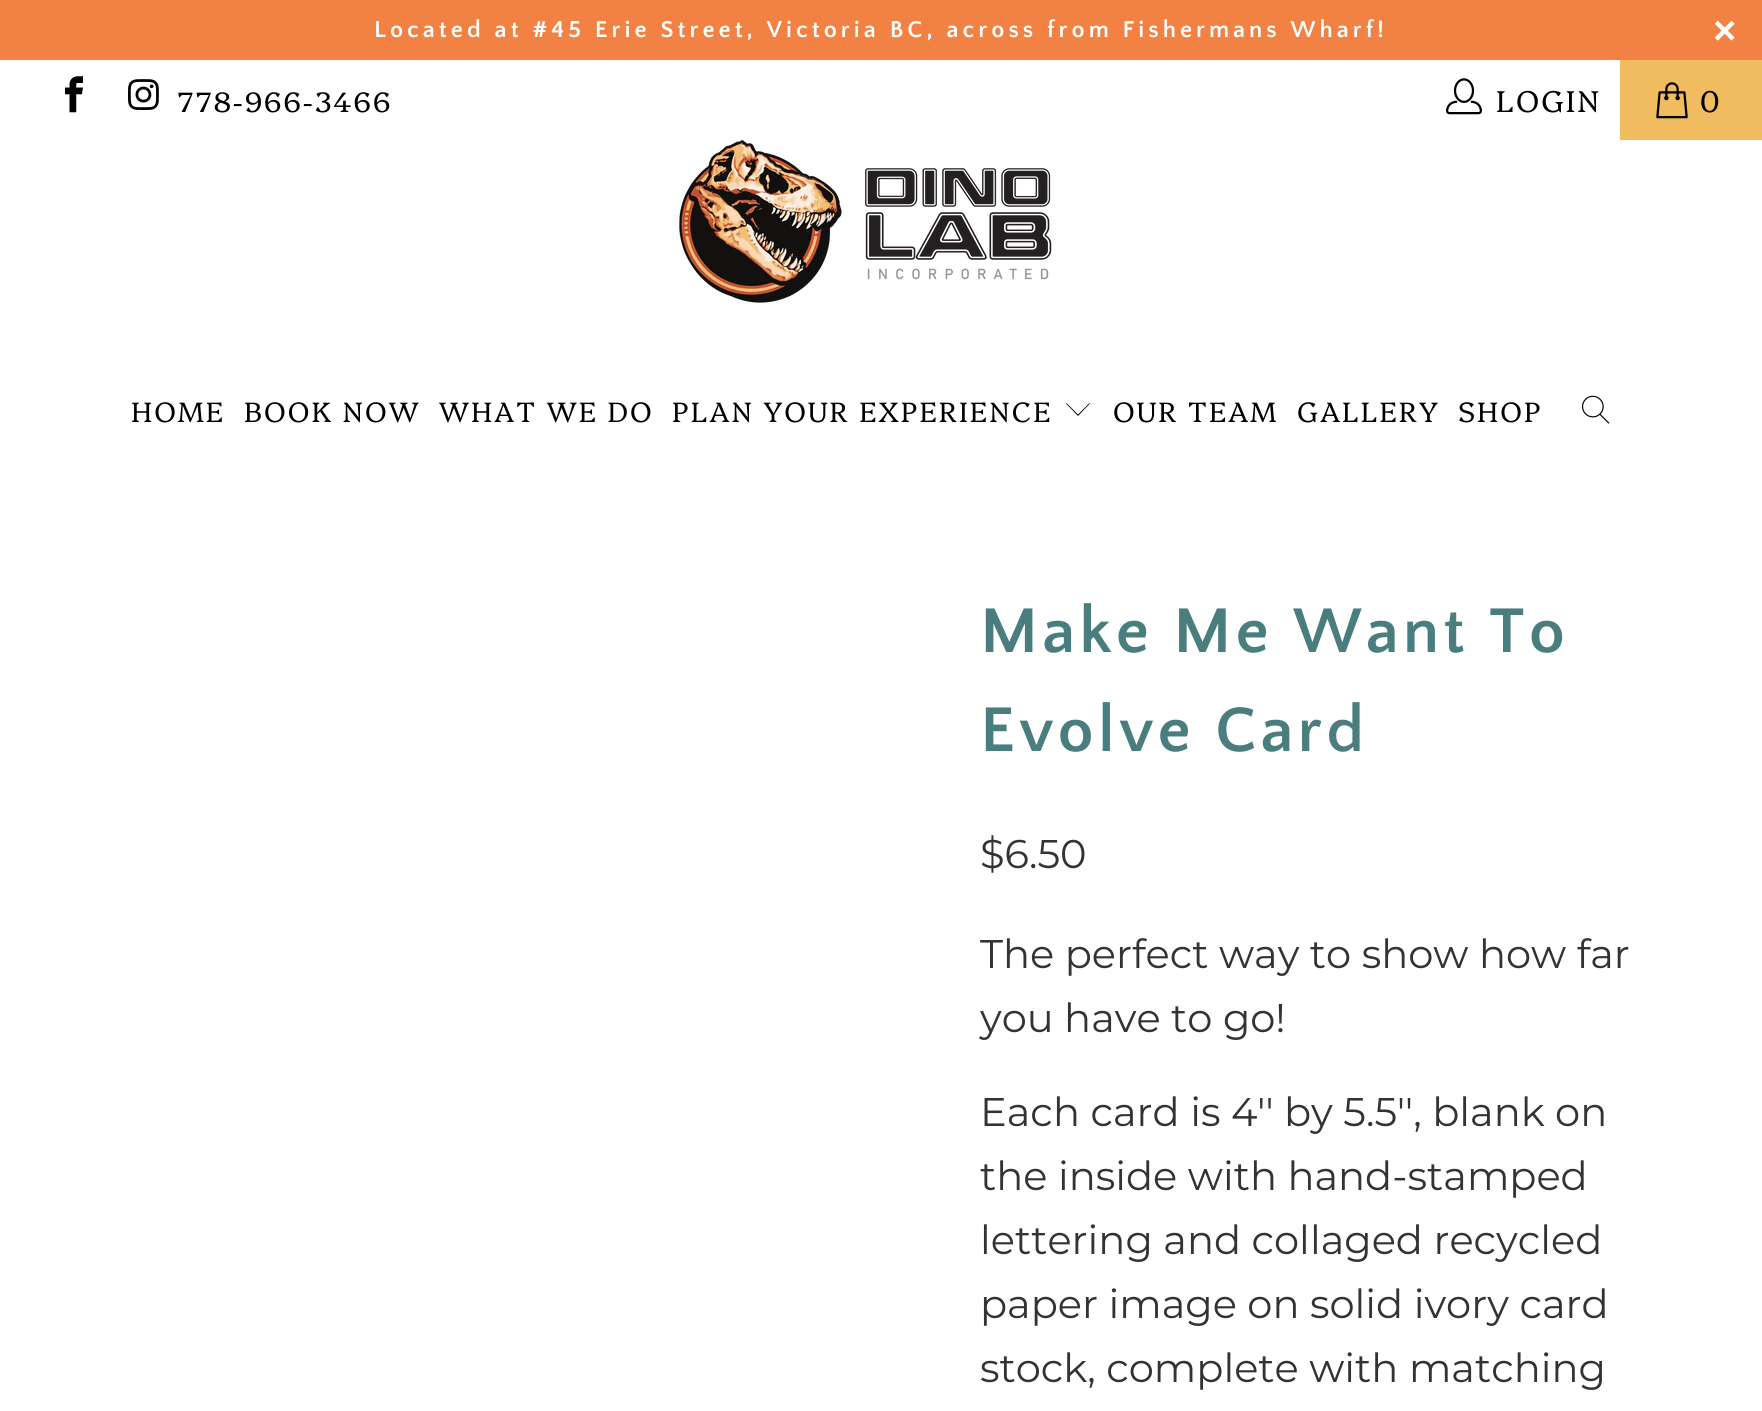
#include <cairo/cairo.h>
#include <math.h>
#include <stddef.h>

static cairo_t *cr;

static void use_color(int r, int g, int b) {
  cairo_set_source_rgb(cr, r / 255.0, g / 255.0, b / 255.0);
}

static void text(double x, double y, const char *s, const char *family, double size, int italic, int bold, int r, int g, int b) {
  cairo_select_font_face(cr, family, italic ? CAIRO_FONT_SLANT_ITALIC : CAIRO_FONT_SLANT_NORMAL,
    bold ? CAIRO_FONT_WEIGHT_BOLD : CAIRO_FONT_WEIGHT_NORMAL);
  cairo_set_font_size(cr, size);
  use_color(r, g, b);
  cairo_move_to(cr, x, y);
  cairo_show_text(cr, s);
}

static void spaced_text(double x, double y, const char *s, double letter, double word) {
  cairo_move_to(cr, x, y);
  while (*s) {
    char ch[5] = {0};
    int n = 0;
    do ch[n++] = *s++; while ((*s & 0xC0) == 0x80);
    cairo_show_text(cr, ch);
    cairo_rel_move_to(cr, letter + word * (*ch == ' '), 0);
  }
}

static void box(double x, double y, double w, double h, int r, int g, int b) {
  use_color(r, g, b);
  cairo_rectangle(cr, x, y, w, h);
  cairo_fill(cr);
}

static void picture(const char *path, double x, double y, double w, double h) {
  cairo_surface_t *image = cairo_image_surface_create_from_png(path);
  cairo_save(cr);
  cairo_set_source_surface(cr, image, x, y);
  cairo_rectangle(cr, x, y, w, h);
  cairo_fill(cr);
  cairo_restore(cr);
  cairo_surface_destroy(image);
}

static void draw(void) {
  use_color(255, 255, 255);
  cairo_paint(cr);
  box(0, 0, 1762, 60, 241, 130, 68);
  picture("img_01.png", 65, 76, 18, 37);
  picture("img_02.png", 128, 79, 31, 31);
  picture("img_03.png", 1446, 78, 36, 37);
  box(1620, 60, 142, 80, 241, 187, 96);
  picture("img_04.png", 1656, 82, 32, 37);
  picture("img_05.png", 679, 140, 373, 163);
  use_color(0, 0, 0);
  cairo_new_path(cr);
  cairo_move_to(cr, 1078, 416);
  cairo_line_to(cr, 1066, 403.5);
  cairo_line_to(cr, 1066.5, 403);
  cairo_line_to(cr, 1078, 414.5);
  cairo_line_to(cr, 1089.5, 403);
  cairo_line_to(cr, 1090, 403.5);
  cairo_close_path(cr);
  cairo_fill(cr);
  picture("img_06.png", 1581, 395, 29, 29);
  cairo_select_font_face(cr, "Quattrocento Sans", CAIRO_FONT_SLANT_NORMAL, CAIRO_FONT_WEIGHT_BOLD);
  cairo_set_font_size(cr, 24);
  use_color(255, 255, 255);
  spaced_text(374, 37, "Located at #45 Erie Street, Victoria BC, across from Fishermans Wharf!", 4, 0);
  cairo_select_font_face(cr, "Liberation Sans", CAIRO_FONT_SLANT_NORMAL, CAIRO_FONT_WEIGHT_BOLD);
  cairo_set_font_size(cr, 40);
  spaced_text(1713, 44, "×", 4, 0);
  cairo_select_font_face(cr, "Platypi Light", CAIRO_FONT_SLANT_NORMAL, CAIRO_FONT_WEIGHT_NORMAL);
  cairo_set_font_size(cr, 28);
  use_color(0, 0, 0);
  spaced_text(177, 112, "778-966-3466", 2, 0);
  cairo_set_font_size(cr, 30);
  spaced_text(1496, 112, "LOGIN", 2, 0);
  spaced_text(1700, 112, "0", 2, 0);
  cairo_set_font_size(cr, 28);
  spaced_text(131, 422, "HOME", 2, 0);
  spaced_text(244, 422, "BOOK NOW", 2, 0);
  spaced_text(439, 422, "WHAT WE DO", 2, 0);
  spaced_text(672, 422, "PLAN YOUR EXPERIENCE", 2, 0);
  spaced_text(1113, 422, "OUR TEAM", 2, 0);
  spaced_text(1297, 422, "GALLERY", 2, 0);
  spaced_text(1458, 422, "SHOP", 2, 0);
  cairo_select_font_face(cr, "Quattrocento Sans", CAIRO_FONT_SLANT_NORMAL, CAIRO_FONT_WEIGHT_BOLD);
  cairo_set_font_size(cr, 66);
  use_color(74, 125, 126);
  spaced_text(980, 652, "Make Me Want To", 4, 0);
  spaced_text(980, 751, "Evolve Card", 4, 0);
  text(980, 868, "$6.50", "Montserrat", 40, 0, 0, 51, 51, 51);
  text(980, 968, "The perfect way to show how far", "Montserrat", 40, 0, 0, 51, 51, 51);
  text(980, 1032, "you have to go!", "Montserrat", 40, 0, 0, 51, 51, 51);
  text(980, 1126, "Each card is 4'' by 5.5'', blank on", "Montserrat", 40, 0, 0, 51, 51, 51);
  text(980, 1190, "the inside with hand-stamped", "Montserrat", 40, 0, 0, 51, 51, 51);
  text(980, 1254, "lettering and collaged recycled", "Montserrat", 40, 0, 0, 51, 51, 51);
  text(980, 1318, "paper image on solid ivory card", "Montserrat", 40, 0, 0, 51, 51, 51);
  text(980, 1382, "stock, complete with matching", "Montserrat", 40, 0, 0, 51, 51, 51);
}

int main(void) {
  cairo_surface_t *surface = cairo_image_surface_create(CAIRO_FORMAT_RGB24, 1762, 1411);
  cr = cairo_create(surface);
  cairo_font_options_t *options = cairo_font_options_create();
  cairo_font_options_set_hint_metrics(options, CAIRO_HINT_METRICS_OFF);
  cairo_font_options_set_hint_style(options, CAIRO_HINT_STYLE_NONE);
  cairo_set_font_options(cr, options);
  cairo_set_miter_limit(cr, 4);
  draw();
  cairo_surface_write_to_png(surface, "out.png");
  cairo_font_options_destroy(options);
  cairo_destroy(cr);
  cairo_surface_destroy(surface);
  return 0;
}
